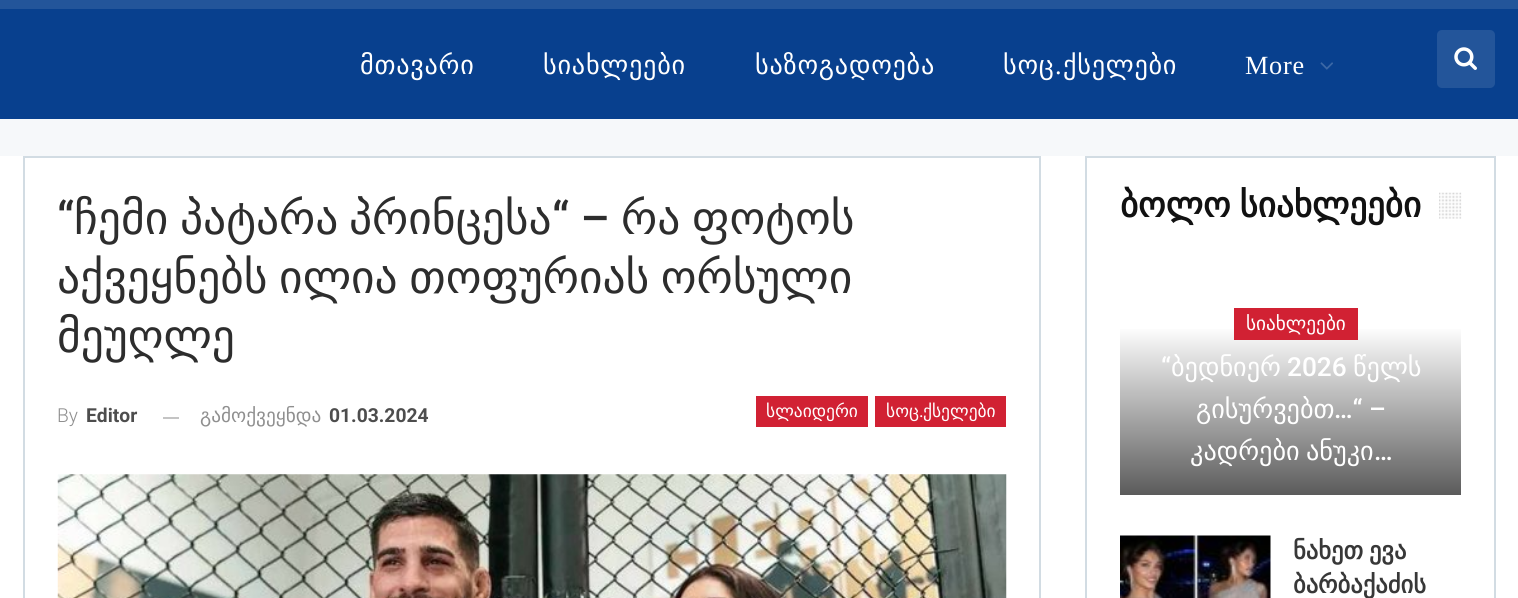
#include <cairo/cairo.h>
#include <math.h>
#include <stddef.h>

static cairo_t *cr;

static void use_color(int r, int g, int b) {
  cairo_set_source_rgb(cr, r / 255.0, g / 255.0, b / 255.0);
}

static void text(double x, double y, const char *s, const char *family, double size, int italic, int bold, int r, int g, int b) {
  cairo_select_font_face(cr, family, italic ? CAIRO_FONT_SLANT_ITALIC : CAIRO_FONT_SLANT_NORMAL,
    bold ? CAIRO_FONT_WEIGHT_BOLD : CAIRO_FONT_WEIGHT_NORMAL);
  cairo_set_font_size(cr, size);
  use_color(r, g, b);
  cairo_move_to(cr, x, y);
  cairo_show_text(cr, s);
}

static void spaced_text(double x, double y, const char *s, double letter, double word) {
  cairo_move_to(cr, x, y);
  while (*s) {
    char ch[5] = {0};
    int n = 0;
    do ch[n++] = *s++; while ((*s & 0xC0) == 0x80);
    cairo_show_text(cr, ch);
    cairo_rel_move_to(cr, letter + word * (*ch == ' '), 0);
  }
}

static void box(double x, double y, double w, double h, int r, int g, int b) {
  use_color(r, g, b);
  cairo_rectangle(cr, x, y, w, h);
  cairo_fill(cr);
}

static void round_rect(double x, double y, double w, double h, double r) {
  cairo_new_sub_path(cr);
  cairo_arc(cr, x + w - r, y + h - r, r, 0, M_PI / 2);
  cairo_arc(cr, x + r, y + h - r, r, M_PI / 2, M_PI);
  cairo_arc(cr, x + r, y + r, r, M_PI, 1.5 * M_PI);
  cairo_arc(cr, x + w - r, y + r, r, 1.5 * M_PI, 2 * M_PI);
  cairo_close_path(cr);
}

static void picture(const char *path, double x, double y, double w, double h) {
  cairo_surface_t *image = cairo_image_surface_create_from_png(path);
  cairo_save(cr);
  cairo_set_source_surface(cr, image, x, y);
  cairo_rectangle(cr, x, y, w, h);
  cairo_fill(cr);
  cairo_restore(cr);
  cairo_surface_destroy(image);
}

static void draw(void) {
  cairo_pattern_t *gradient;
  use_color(246, 248, 250);
  cairo_paint(cr);
  box(0, 9, 1518, 110, 8, 64, 142);
  box(0, 0, 1518, 9, 35, 85, 154);
  picture("img_01.png", 1320, 62, 13, 8);
  round_rect(1437, 30, 58, 58, 5);
  cairo_fill(cr);
  picture("img_02.png", 1454, 47, 23, 23);
  box(0, 156, 1518, 442, 255, 255, 255);
  cairo_rectangle(cr, 24, 157, 1016, 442);
  use_color(210, 220, 227);
  cairo_stroke(cr);
  box(163, 417, 16, 2, 196, 196, 196);
  box(756, 396, 112, 31, 209, 33, 51);
  box(875, 396, 131, 31, 209, 33, 51);
  picture("img_03.png", 57, 474, 950, 124);
  cairo_rectangle(cr, 1086, 157, 409, 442);
  use_color(210, 220, 227);
  cairo_stroke(cr);
  picture("img_04.png", 1439, 192, 23, 27);
  gradient = cairo_pattern_create_linear(1291, 326, 1291, 497);
  cairo_pattern_add_color_stop_rgba(gradient, 0, 1, 1, 1, 1);
  cairo_pattern_add_color_stop_rgba(gradient, 1, 0.349, 0.349, 0.349, 1);
  cairo_set_source(cr, gradient);
  cairo_pattern_destroy(gradient);
  cairo_rectangle(cr, 1120, 329, 341, 166);
  cairo_fill(cr);
  box(1234, 308, 124, 32, 209, 33, 51);
  picture("img_05.png", 1120, 535, 151, 63);
  cairo_select_font_face(cr, "DejaVu Sans", CAIRO_FONT_SLANT_NORMAL, CAIRO_FONT_WEIGHT_NORMAL);
  cairo_set_font_size(cr, 26.25);
  use_color(255, 255, 255);
  spaced_text(360, 74, "მთავარი", 0.75, 0);
  spaced_text(543, 74, "სიახლეები", 0.75, 0);
  spaced_text(755, 74, "საზოგადოება", 0.75, 0);
  spaced_text(1003, 74, "სოც", 0.75, 0);
  cairo_select_font_face(cr, "Liberation Serif", CAIRO_FONT_SLANT_NORMAL, CAIRO_FONT_WEIGHT_NORMAL);
  spaced_text(1055, 74, ".", 0.75, 0);
  cairo_select_font_face(cr, "DejaVu Sans", CAIRO_FONT_SLANT_NORMAL, CAIRO_FONT_WEIGHT_NORMAL);
  spaced_text(1063, 74, "ქსელები", 0.75, 0);
  cairo_select_font_face(cr, "Liberation Serif", CAIRO_FONT_SLANT_NORMAL, CAIRO_FONT_WEIGHT_NORMAL);
  spaced_text(1245, 74, "More", 0.75, 0);
  text(57, 234, "“", "Roboto Medium", 45.5, 0, 0, 45, 45, 45);
  text(74, 234, "ჩემი", "DejaVu Sans", 45.5, 0, 0, 45, 45, 45);
  text(180, 234, "პატარა", "DejaVu Sans", 45.5, 0, 0, 45, 45, 45);
  text(349, 234, "პრინცესა", "DejaVu Sans", 45.5, 0, 0, 45, 45, 45);
  text(552, 234, "“ –", "Roboto Medium", 45.5, 0, 0, 45, 45, 45);
  text(621, 234, "რა", "DejaVu Sans", 45.5, 0, 0, 45, 45, 45);
  text(692, 234, "ფოტოს", "DejaVu Sans", 45.5, 0, 0, 45, 45, 45);
  spaced_text(57, 293, "აქვეყნებს ილია თოფურიას ორსული", 0, -3);
  text(57, 352, "მეუღლე", "DejaVu Sans", 45.5, 0, 0, 45, 45, 45);
  text(57, 422, "By", "Roboto Light", 19.25, 0, 0, 143, 143, 143);
  text(86, 422, "Editor", "Roboto", 19.25, 0, 1, 77, 77, 77);
  text(200, 422, "გამოქვეყნდა", "DejaVu Sans", 19.25, 0, 0, 143, 143, 143);
  text(329, 422, "01.03.2024", "Roboto", 19.25, 0, 1, 77, 77, 77);
  text(766, 417, "სლაიდერი", "DejaVu Sans", 17.5, 0, 0, 255, 255, 255);
  text(886, 417, "სოც", "DejaVu Sans", 17.5, 0, 0, 255, 255, 255);
  text(919, 417, ".", "Roboto", 17.5, 0, 0, 255, 255, 255);
  text(923, 417, "ქსელები", "DejaVu Sans", 17.5, 0, 0, 255, 255, 255);
  cairo_select_font_face(cr, "DejaVu Sans", CAIRO_FONT_SLANT_NORMAL, CAIRO_FONT_WEIGHT_BOLD);
  cairo_set_font_size(cr, 35);
  use_color(17, 17, 17);
  spaced_text(1120, 217, "ბოლო სიახლეები", 0, -2);
  text(1246, 330, "სიახლეები", "DejaVu Sans", 19.25, 0, 0, 255, 255, 255);
  text(1161, 376, "“", "Roboto Medium", 26.25, 0, 0, 255, 255, 255);
  text(1171, 376, "ბედნიერ", "DejaVu Sans", 26.25, 0, 0, 255, 255, 255);
  text(1287, 376, "2026", "Roboto Medium", 26.25, 0, 0, 255, 255, 255);
  text(1353, 376, "წელს", "DejaVu Sans", 26.25, 0, 0, 255, 255, 255);
  text(1196, 418, "გისურვებთ", "DejaVu Sans", 26.25, 0, 0, 255, 255, 255);
  text(1334, 418, "…“ –", "Roboto Medium", 26.25, 0, 0, 255, 255, 255);
  cairo_select_font_face(cr, "DejaVu Sans", CAIRO_FONT_SLANT_NORMAL, CAIRO_FONT_WEIGHT_NORMAL);
  spaced_text(1190, 460, "კადრები ანუკი", 0, -2);
  text(1374, 460, "…", "Roboto Medium", 26.25, 0, 0, 255, 255, 255);
  cairo_select_font_face(cr, "DejaVu Sans", CAIRO_FONT_SLANT_NORMAL, CAIRO_FONT_WEIGHT_BOLD);
  cairo_set_font_size(cr, 24.5);
  use_color(56, 56, 56);
  spaced_text(1293, 559, "ნახეთ ევა", 0, -2);
  text(1293, 593, "ბარბაქაძის", "DejaVu Sans", 24.5, 0, 1, 56, 56, 56);
}

int main(void) {
  cairo_surface_t *surface = cairo_image_surface_create(CAIRO_FORMAT_RGB24, 1518, 598);
  cr = cairo_create(surface);
  cairo_font_options_t *options = cairo_font_options_create();
  cairo_font_options_set_hint_metrics(options, CAIRO_HINT_METRICS_OFF);
  cairo_font_options_set_hint_style(options, CAIRO_HINT_STYLE_NONE);
  cairo_set_font_options(cr, options);
  cairo_set_miter_limit(cr, 4);
  draw();
  cairo_surface_write_to_png(surface, "out.png");
  cairo_font_options_destroy(options);
  cairo_destroy(cr);
  cairo_surface_destroy(surface);
  return 0;
}
